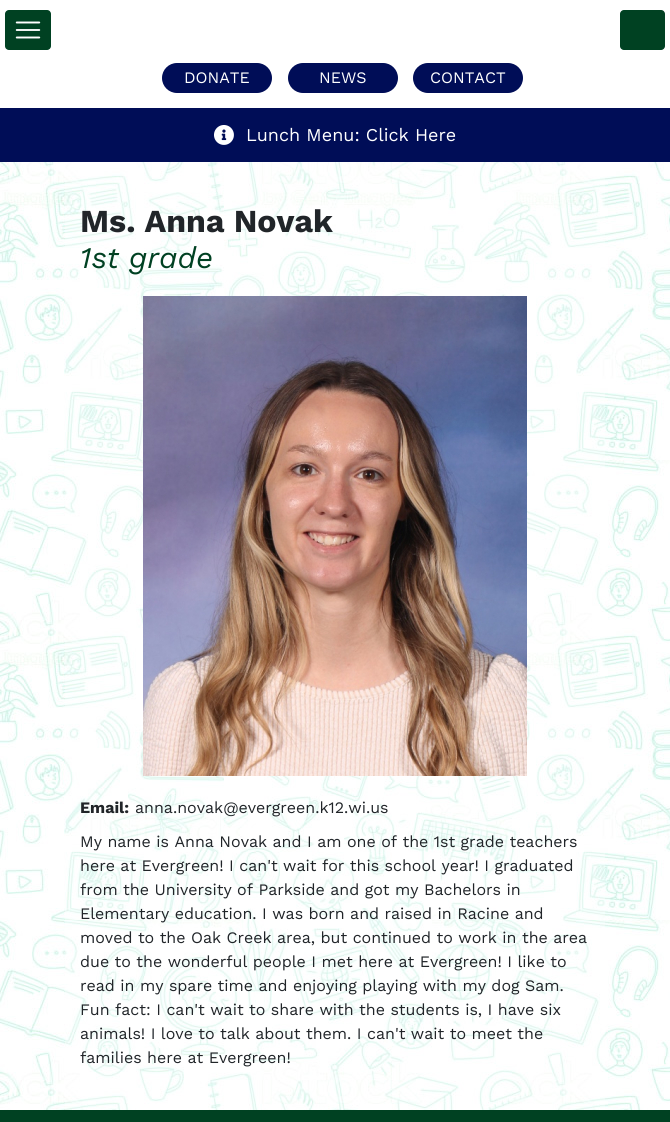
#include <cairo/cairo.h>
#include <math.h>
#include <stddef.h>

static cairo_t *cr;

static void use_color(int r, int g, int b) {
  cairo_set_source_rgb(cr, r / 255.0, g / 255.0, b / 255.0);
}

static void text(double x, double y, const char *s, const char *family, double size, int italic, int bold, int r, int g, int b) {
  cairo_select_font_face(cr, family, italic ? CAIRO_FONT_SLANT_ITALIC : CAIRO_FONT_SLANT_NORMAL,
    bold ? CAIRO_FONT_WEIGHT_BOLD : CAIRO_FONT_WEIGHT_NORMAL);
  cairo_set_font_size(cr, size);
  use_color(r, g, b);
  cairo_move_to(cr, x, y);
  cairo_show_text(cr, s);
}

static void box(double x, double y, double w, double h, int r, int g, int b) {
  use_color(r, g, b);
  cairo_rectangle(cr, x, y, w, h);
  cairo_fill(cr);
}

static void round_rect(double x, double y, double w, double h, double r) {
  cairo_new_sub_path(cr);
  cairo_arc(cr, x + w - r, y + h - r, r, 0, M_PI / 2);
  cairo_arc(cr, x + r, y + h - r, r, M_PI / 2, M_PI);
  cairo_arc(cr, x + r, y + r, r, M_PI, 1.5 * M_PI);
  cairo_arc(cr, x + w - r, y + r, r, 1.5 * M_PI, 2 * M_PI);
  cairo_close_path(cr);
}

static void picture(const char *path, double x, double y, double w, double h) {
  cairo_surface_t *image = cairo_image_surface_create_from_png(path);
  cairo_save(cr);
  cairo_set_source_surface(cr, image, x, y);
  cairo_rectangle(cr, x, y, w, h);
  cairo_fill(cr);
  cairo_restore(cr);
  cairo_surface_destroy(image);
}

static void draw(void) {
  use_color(255, 255, 255);
  cairo_paint(cr);
  picture("img_01.png", 0, 162, 670, 948);
  use_color(0, 65, 34);
  round_rect(5, 10, 46, 40, 4);
  cairo_fill(cr);
  picture("img_02.png", 15, 21, 26, 18);
  round_rect(620, 10, 45, 40, 4);
  cairo_fill(cr);
  use_color(0, 13, 87);
  round_rect(162, 63, 110, 30, 15);
  cairo_fill(cr);
  round_rect(288, 63, 110, 30, 15);
  cairo_fill(cr);
  round_rect(413, 63, 110, 30, 15);
  cairo_fill(cr);
  box(0, 108, 670, 54, 0, 13, 87);
  picture("img_03.png", 214, 125, 20, 20);
  cairo_set_source_rgba(cr, 1, 1, 1, 0.3);
  cairo_rectangle(cr, 65, 162, 540, 948);
  cairo_fill(cr);
  picture("img_04.png", 143, 296, 384, 480);
  box(0, 1110, 670, 12, 0, 65, 34);
  text(184, 83, "DONATE", "Work Sans", 16, 0, 0, 255, 255, 255);
  text(319, 83, "NEWS", "Work Sans", 16, 0, 0, 255, 255, 255);
  text(430, 83, "CONTACT", "Work Sans", 16, 0, 0, 255, 255, 255);
  text(246, 141, "Lunch Menu: Click Here", "Work Sans", 18, 0, 0, 255, 255, 255);
  text(80, 232, "Ms. Anna Novak", "Work Sans", 32, 0, 1, 33, 37, 41);
  text(80, 268, "1st grade", "Work Sans", 30, 1, 0, 0, 65, 34);
  text(80, 813, "Email:", "Work Sans", 16, 0, 1, 33, 37, 41);
  text(135, 813, "anna.novak@evergreen.k12.wi.us", "Work Sans", 16, 0, 0, 33, 37, 41);
  text(80, 847, "My name is Anna Novak and I am one of the 1st grade teachers", "Work Sans", 16, 0, 0, 33, 37, 41);
  text(80, 871, "here at Evergreen! I can't wait for this school year! I graduated", "Work Sans", 16, 0, 0, 33, 37, 41);
  text(80, 895, "from the University of Parkside and got my Bachelors in", "Work Sans", 16, 0, 0, 33, 37, 41);
  text(80, 919, "Elementary education. I was born and raised in Racine and", "Work Sans", 16, 0, 0, 33, 37, 41);
  text(80, 943, "moved to the Oak Creek area, but continued to work in the area", "Work Sans", 16, 0, 0, 33, 37, 41);
  text(80, 967, "due to the wonderful people I met here at Evergreen! I like to", "Work Sans", 16, 0, 0, 33, 37, 41);
  text(80, 991, "read in my spare time and enjoying playing with my dog Sam.", "Work Sans", 16, 0, 0, 33, 37, 41);
  text(80, 1015, "Fun fact: I can't wait to share with the students is, I have six", "Work Sans", 16, 0, 0, 33, 37, 41);
  text(80, 1039, "animals! I love to talk about them. I can't wait to meet the", "Work Sans", 16, 0, 0, 33, 37, 41);
  text(80, 1063, "families here at Evergreen!", "Work Sans", 16, 0, 0, 33, 37, 41);
}

int main(void) {
  cairo_surface_t *surface = cairo_image_surface_create(CAIRO_FORMAT_RGB24, 670, 1122);
  cr = cairo_create(surface);
  cairo_font_options_t *options = cairo_font_options_create();
  cairo_font_options_set_hint_metrics(options, CAIRO_HINT_METRICS_OFF);
  cairo_font_options_set_hint_style(options, CAIRO_HINT_STYLE_NONE);
  cairo_set_font_options(cr, options);
  cairo_set_miter_limit(cr, 4);
  draw();
  cairo_surface_write_to_png(surface, "out.png");
  cairo_font_options_destroy(options);
  cairo_destroy(cr);
  cairo_surface_destroy(surface);
  return 0;
}
